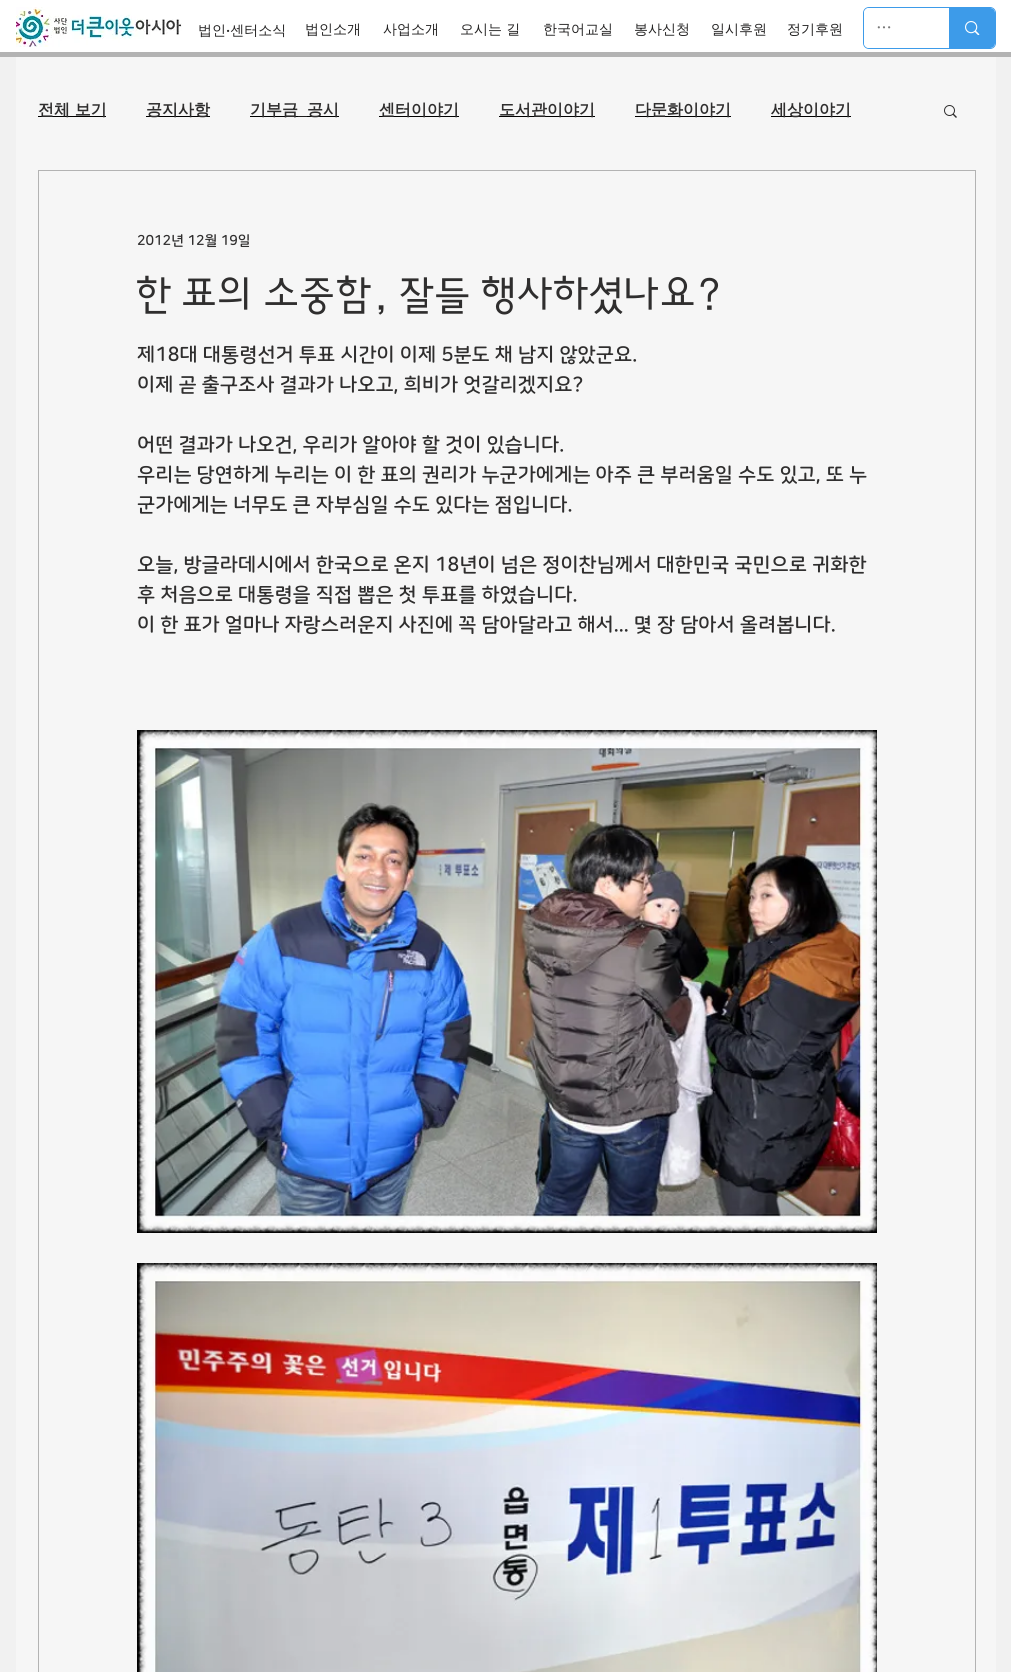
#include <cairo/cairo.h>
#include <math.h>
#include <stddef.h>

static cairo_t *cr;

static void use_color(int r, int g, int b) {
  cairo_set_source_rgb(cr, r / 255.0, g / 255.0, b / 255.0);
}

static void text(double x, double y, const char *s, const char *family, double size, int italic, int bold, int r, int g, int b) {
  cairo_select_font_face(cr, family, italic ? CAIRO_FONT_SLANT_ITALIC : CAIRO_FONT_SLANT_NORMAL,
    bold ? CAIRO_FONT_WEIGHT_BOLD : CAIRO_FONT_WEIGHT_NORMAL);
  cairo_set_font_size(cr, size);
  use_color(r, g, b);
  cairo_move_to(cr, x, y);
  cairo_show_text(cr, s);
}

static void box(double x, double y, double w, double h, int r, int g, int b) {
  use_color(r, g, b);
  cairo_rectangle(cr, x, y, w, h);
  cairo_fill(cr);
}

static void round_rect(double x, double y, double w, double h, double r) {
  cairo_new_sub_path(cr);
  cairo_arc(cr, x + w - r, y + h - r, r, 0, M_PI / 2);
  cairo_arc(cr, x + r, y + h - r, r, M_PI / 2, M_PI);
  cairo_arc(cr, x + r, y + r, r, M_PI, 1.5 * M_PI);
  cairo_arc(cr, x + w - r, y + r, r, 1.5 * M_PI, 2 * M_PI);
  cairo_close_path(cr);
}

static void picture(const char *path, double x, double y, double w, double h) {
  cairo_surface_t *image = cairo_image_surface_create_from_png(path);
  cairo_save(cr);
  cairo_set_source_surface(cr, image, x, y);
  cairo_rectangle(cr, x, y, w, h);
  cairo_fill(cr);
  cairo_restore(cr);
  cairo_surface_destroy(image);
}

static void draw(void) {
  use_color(241, 241, 241);
  cairo_paint(cr);
  box(0, 0, 1011, 52, 255, 255, 255);
  box(0, 52, 1011, 5, 179, 179, 179);
  picture("img_01.png", 16, 7, 166, 40);
  round_rect(863.5, 7.5, 132, 41, 5.5);
  use_color(61, 155, 233);
  cairo_set_line_width(cr, 1);
  cairo_stroke(cr);
  use_color(255, 255, 255);
  round_rect(864, 8, 131, 40, 5);
  cairo_fill(cr);
  use_color(61, 155, 233);
  cairo_new_path(cr);
  cairo_move_to(cr, 949, 8);
  cairo_line_to(cr, 990, 8);
  cairo_curve_to(cr, 993, 8, 995, 10, 995, 13);
  cairo_line_to(cr, 995, 43);
  cairo_curve_to(cr, 995, 46, 993, 48, 990, 48);
  cairo_line_to(cr, 949, 48);
  cairo_close_path(cr);
  cairo_fill(cr);
  picture("img_02.png", 965, 21, 15, 14);
  box(16, 57, 980, 1615, 246, 246, 246);
  box(38, 116, 68, 1, 0, 0, 0);
  box(146, 116, 64, 1, 0, 0, 0);
  box(250, 116, 89, 1, 0, 0, 0);
  box(379, 116, 80, 1, 0, 0, 0);
  box(499, 116, 96, 1, 0, 0, 0);
  box(635, 116, 96, 1, 0, 0, 0);
  box(771, 116, 80, 1, 0, 0, 0);
  picture("img_03.png", 944, 105, 13, 13);
  cairo_rectangle(cr, 38.5, 170.5, 937, 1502);
  use_color(179, 179, 179);
  cairo_stroke(cr);
  picture("img_04.png", 137, 730, 740, 503);
  picture("img_05.png", 137, 1263, 740, 409);
  text(198, 35, "법인 센터소식", "WenQuanYi Zen Hei Medium", 14, 0, 0, 36, 35, 35);
  text(226, 35, "·", "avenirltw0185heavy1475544 Black", 14, 0, 0, 36, 35, 35);
  text(305, 34, "법인소개", "WenQuanYi Zen Hei Medium", 14, 0, 0, 36, 35, 35);
  text(383, 34, "사업소개", "WenQuanYi Zen Hei Medium", 14, 0, 0, 36, 35, 35);
  text(460, 34, "오시는 길", "WenQuanYi Zen Hei Medium", 14, 0, 0, 36, 35, 35);
  text(543, 34, "한국어교실", "WenQuanYi Zen Hei Medium", 14, 0, 0, 36, 35, 35);
  text(634, 34, "봉사신청", "WenQuanYi Zen Hei Medium", 14, 0, 0, 36, 35, 35);
  text(711, 34, "일시후원", "WenQuanYi Zen Hei Medium", 14, 0, 0, 36, 35, 35);
  text(787, 34, "정기후원", "WenQuanYi Zen Hei Medium", 14, 0, 0, 36, 35, 35);
  text(876, 33, "…", "WenQuanYi Zen Hei Medium", 16, 0, 0, 120, 120, 120);
  text(38, 115, "전체 보기", "WenQuanYi Zen Hei", 16, 0, 1, 47, 46, 46);
  text(146, 115, "공지사항", "WenQuanYi Zen Hei", 16, 0, 1, 47, 46, 46);
  text(250, 115, "기부금", "WenQuanYi Zen Hei", 16, 0, 1, 47, 46, 46);
  text(298, 115, "_", "Liberation Sans", 16, 0, 1, 47, 46, 46);
  text(307, 115, "공시", "WenQuanYi Zen Hei", 16, 0, 1, 47, 46, 46);
  text(379, 115, "센터이야기", "WenQuanYi Zen Hei", 16, 0, 1, 47, 46, 46);
  text(499, 115, "도서관이야기", "WenQuanYi Zen Hei", 16, 0, 1, 47, 46, 46);
  text(635, 115, "다문화이야기", "WenQuanYi Zen Hei", 16, 0, 1, 47, 46, 46);
  text(771, 115, "세상이야기", "WenQuanYi Zen Hei", 16, 0, 1, 47, 46, 46);
  text(137, 245, "2012년 12월 19일", "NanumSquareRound", 14, 0, 1, 47, 46, 46);
  text(137, 309, "한 표의 소중함, 잘들 행사하셨나요?", "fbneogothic", 40, 0, 0, 47, 46, 46);
  text(137, 361, "제18대 대통령선거 투표 시간이 이제 5분도 채 남지 않았군요.", "NanumSquareRound", 20, 0, 1, 47, 46, 46);
  text(137, 391, "이제 곧 출구조사 결과가 나오고, 희비가 엇갈리겠지요?", "NanumSquareRound", 20, 0, 1, 47, 46, 46);
  text(137, 451, "어떤 결과가 나오건, 우리가 알아야 할 것이 있습니다.", "NanumSquareRound", 20, 0, 1, 47, 46, 46);
  text(137, 481, "우리는 당연하게 누리는 이 한 표의 권리가 누군가에게는 아주 큰 부러움일 수도 있고, 또 누", "NanumSquareRound", 20, 0, 1, 47, 46, 46);
  text(137, 511, "군가에게는 너무도 큰 자부심일 수도 있다는 점입니다.", "NanumSquareRound", 20, 0, 1, 47, 46, 46);
  text(137, 571, "오늘, 방글라데시에서 한국으로 온지 18년이 넘은 정이찬님께서 대한민국 국민으로 귀화한", "NanumSquareRound", 20, 0, 1, 47, 46, 46);
  text(137, 601, "후 처음으로 대통령을 직접 뽑은 첫 투표를 하였습니다.", "NanumSquareRound", 20, 0, 1, 47, 46, 46);
  text(137, 631, "이 한 표가 얼마나 자랑스러운지 사진에 꼭 담아달라고 해서... 몇 장 담아서 올려봅니다.", "NanumSquareRound", 20, 0, 1, 47, 46, 46);
}

int main(void) {
  cairo_surface_t *surface = cairo_image_surface_create(CAIRO_FORMAT_RGB24, 1011, 1672);
  cr = cairo_create(surface);
  cairo_font_options_t *options = cairo_font_options_create();
  cairo_font_options_set_hint_metrics(options, CAIRO_HINT_METRICS_OFF);
  cairo_font_options_set_hint_style(options, CAIRO_HINT_STYLE_NONE);
  cairo_set_font_options(cr, options);
  cairo_set_miter_limit(cr, 4);
  draw();
  cairo_surface_write_to_png(surface, "out.png");
  cairo_font_options_destroy(options);
  cairo_destroy(cr);
  cairo_surface_destroy(surface);
  return 0;
}
